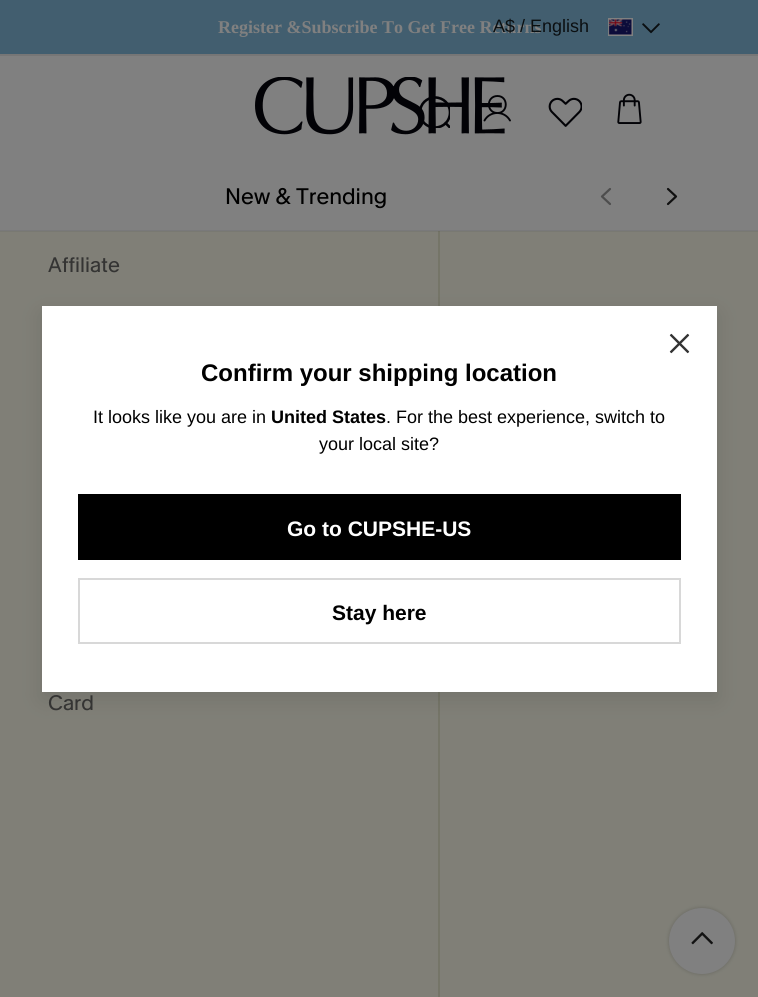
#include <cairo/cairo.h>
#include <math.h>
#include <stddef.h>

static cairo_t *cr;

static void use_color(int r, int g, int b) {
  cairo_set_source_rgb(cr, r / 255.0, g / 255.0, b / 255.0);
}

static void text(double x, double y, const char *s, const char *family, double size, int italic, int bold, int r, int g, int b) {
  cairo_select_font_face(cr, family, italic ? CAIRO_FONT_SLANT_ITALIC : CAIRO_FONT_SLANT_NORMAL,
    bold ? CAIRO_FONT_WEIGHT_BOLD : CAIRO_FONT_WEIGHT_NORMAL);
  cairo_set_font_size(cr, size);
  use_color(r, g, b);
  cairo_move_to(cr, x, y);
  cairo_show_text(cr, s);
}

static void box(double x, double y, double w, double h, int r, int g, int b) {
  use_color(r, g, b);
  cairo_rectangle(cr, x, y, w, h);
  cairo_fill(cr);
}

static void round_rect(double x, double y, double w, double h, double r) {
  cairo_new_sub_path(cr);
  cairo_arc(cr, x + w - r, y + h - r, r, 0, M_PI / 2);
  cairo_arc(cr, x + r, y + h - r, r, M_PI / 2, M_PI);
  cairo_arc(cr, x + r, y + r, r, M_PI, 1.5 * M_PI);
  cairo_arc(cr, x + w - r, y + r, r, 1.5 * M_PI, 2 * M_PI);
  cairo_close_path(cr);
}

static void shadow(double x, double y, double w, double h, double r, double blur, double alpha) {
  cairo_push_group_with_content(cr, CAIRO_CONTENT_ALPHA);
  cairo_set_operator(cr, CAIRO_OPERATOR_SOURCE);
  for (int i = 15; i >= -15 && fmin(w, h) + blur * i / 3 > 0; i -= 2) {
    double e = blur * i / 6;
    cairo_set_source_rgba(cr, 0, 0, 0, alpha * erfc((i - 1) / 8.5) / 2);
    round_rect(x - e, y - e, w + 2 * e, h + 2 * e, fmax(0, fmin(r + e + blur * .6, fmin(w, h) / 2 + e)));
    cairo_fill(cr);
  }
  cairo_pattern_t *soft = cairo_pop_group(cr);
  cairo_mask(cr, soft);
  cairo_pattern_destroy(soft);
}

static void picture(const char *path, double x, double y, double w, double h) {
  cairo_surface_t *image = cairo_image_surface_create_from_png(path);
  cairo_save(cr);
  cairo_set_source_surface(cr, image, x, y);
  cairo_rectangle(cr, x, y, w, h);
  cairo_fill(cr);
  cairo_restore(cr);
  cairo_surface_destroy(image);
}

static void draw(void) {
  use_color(128, 127, 119);
  cairo_paint(cr);
  box(0, 56, 758, 174, 128, 128, 128);
  box(0, 230, 758, 1, 121, 121, 122);
  box(0, 0, 758, 54, 66, 94, 111);
  cairo_rectangle(cr, 609, 19, 23, 16);
  use_color(128, 128, 128);
  cairo_stroke(cr);
  picture("img_01.png", 608, 19, 24, 16);
  picture("img_02.png", 642, 23, 18, 11);
  box(0, 54, 758, 2, 118, 118, 118);
  picture("img_03.png", 255, 77, 250, 58);
  cairo_save(cr);
  cairo_rectangle(cr, 414, 92, 36, 36);
  cairo_clip(cr);
  cairo_new_path(cr);
  cairo_move_to(cr, 435, 127.5);
  cairo_curve_to(cr, 443.5, 127.5, 450, 121, 450, 112.5);
  cairo_curve_to(cr, 450, 104, 443.5, 97.5, 435, 97.5);
  cairo_curve_to(cr, 426.5, 97.5, 420, 104, 420, 112.5);
  cairo_curve_to(cr, 420, 121, 426.5, 127.5, 435, 127.5);
  cairo_close_path(cr);
  cairo_move_to(cr, 445.5, 123);
  cairo_line_to(cr, 456, 133.5);
  use_color(2, 2, 6);
  cairo_set_line_width(cr, 2.6);
  cairo_set_line_cap(cr, CAIRO_LINE_CAP_ROUND);
  cairo_set_line_join(cr, CAIRO_LINE_JOIN_ROUND);
  cairo_stroke(cr);
  cairo_restore(cr);
  cairo_new_path(cr);
  cairo_move_to(cr, 497.5, 113);
  cairo_curve_to(cr, 508.5, 113, 508.5, 96, 497.5, 96);
  cairo_curve_to(cr, 486, 96, 486, 113, 497.5, 113);
  cairo_close_path(cr);
  cairo_move_to(cr, 484.5, 120.5);
  cairo_curve_to(cr, 490, 110.5, 504.5, 110.5, 510, 120.5);
  use_color(2, 2, 6);
  cairo_set_line_width(cr, 1.9);
  cairo_set_line_cap(cr, CAIRO_LINE_CAP_ROUND);
  cairo_set_line_join(cr, CAIRO_LINE_JOIN_ROUND);
  cairo_stroke(cr);
  picture("img_04.png", 548, 97, 34, 30);
  picture("img_05.png", 617, 93, 25, 31);
  cairo_new_path(cr);
  cairo_move_to(cr, 610, 189);
  cairo_line_to(cr, 602, 196.5);
  cairo_line_to(cr, 610, 204);
  use_color(77, 77, 77);
  cairo_set_line_width(cr, 2.2);
  cairo_stroke(cr);
  cairo_new_path(cr);
  cairo_move_to(cr, 668, 189);
  cairo_line_to(cr, 676, 196.5);
  cairo_line_to(cr, 668, 204);
  use_color(16, 16, 16);
  cairo_stroke(cr);
  box(0, 231, 758, 1, 121, 121, 114);
  box(438, 232, 2, 765, 117, 117, 104);
  box(438, 231, 2, 1, 111, 111, 99);
  use_color(0, 0, 0);
  shadow(42, 314, 675, 385, 0, 11, 0.1);
  box(42, 306, 675, 386, 255, 255, 255);
  picture("img_06.png", 669, 333, 21, 21);
  box(78, 494, 603, 66, 0, 0, 0);
  cairo_rectangle(cr, 79, 579, 601, 64);
  use_color(216, 216, 216);
  cairo_set_line_width(cr, 2);
  cairo_set_line_cap(cr, CAIRO_LINE_CAP_BUTT);
  cairo_set_line_join(cr, CAIRO_LINE_JOIN_MITER);
  cairo_stroke(cr);
  use_color(0, 0, 0);
  shadow(669, 908, 66, 66, 33, 2, 0.2);
  use_color(128, 128, 128);
  cairo_arc(cr, 702, 941, 33, 0, 2 * M_PI);
  cairo_fill(cr);
  picture("img_07.png", 691, 932, 22, 13);
  text(218, 33, "Register &Subscribe To Get Free Returns", "Liberation Serif", 18, 0, 1, 128, 128, 128);
  text(493, 32, "A$ / English", "Liberation Sans", 18, 0, 0, 11, 15, 17);
  text(225, 204, "New & Trending", "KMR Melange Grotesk", 22.5, 0, 0, 0, 0, 0);
  text(48, 272, "Affiliate", "KMR Melange Grotesk", 21, 0, 0, 52, 52, 51);
  text(48, 710, "Card", "KMR Melange Grotesk", 21, 0, 0, 52, 52, 51);
  text(201, 381, "Confirm your shipping location", "Liberation Sans", 24, 0, 1, 0, 0, 0);
  text(93, 423, "It looks like you are in", "Liberation Sans", 18, 0, 0, 0, 0, 0);
  text(271, 423, "United States", "Liberation Sans", 18, 0, 1, 0, 0, 0);
  text(386, 423, ". For the best experience, switch to", "Liberation Sans", 18, 0, 0, 0, 0, 0);
  text(319, 450, "your local site?", "Liberation Sans", 18, 0, 0, 0, 0, 0);
  text(287, 536, "Go to CUPSHE-US", "Liberation Sans", 21, 0, 1, 255, 255, 255);
  text(332, 620, "Stay here", "Liberation Sans", 21, 0, 1, 0, 0, 0);
}

int main(void) {
  cairo_surface_t *surface = cairo_image_surface_create(CAIRO_FORMAT_RGB24, 758, 997);
  cr = cairo_create(surface);
  cairo_font_options_t *options = cairo_font_options_create();
  cairo_font_options_set_hint_metrics(options, CAIRO_HINT_METRICS_OFF);
  cairo_font_options_set_hint_style(options, CAIRO_HINT_STYLE_NONE);
  cairo_set_font_options(cr, options);
  cairo_set_miter_limit(cr, 4);
  draw();
  cairo_surface_write_to_png(surface, "out.png");
  cairo_font_options_destroy(options);
  cairo_destroy(cr);
  cairo_surface_destroy(surface);
  return 0;
}
